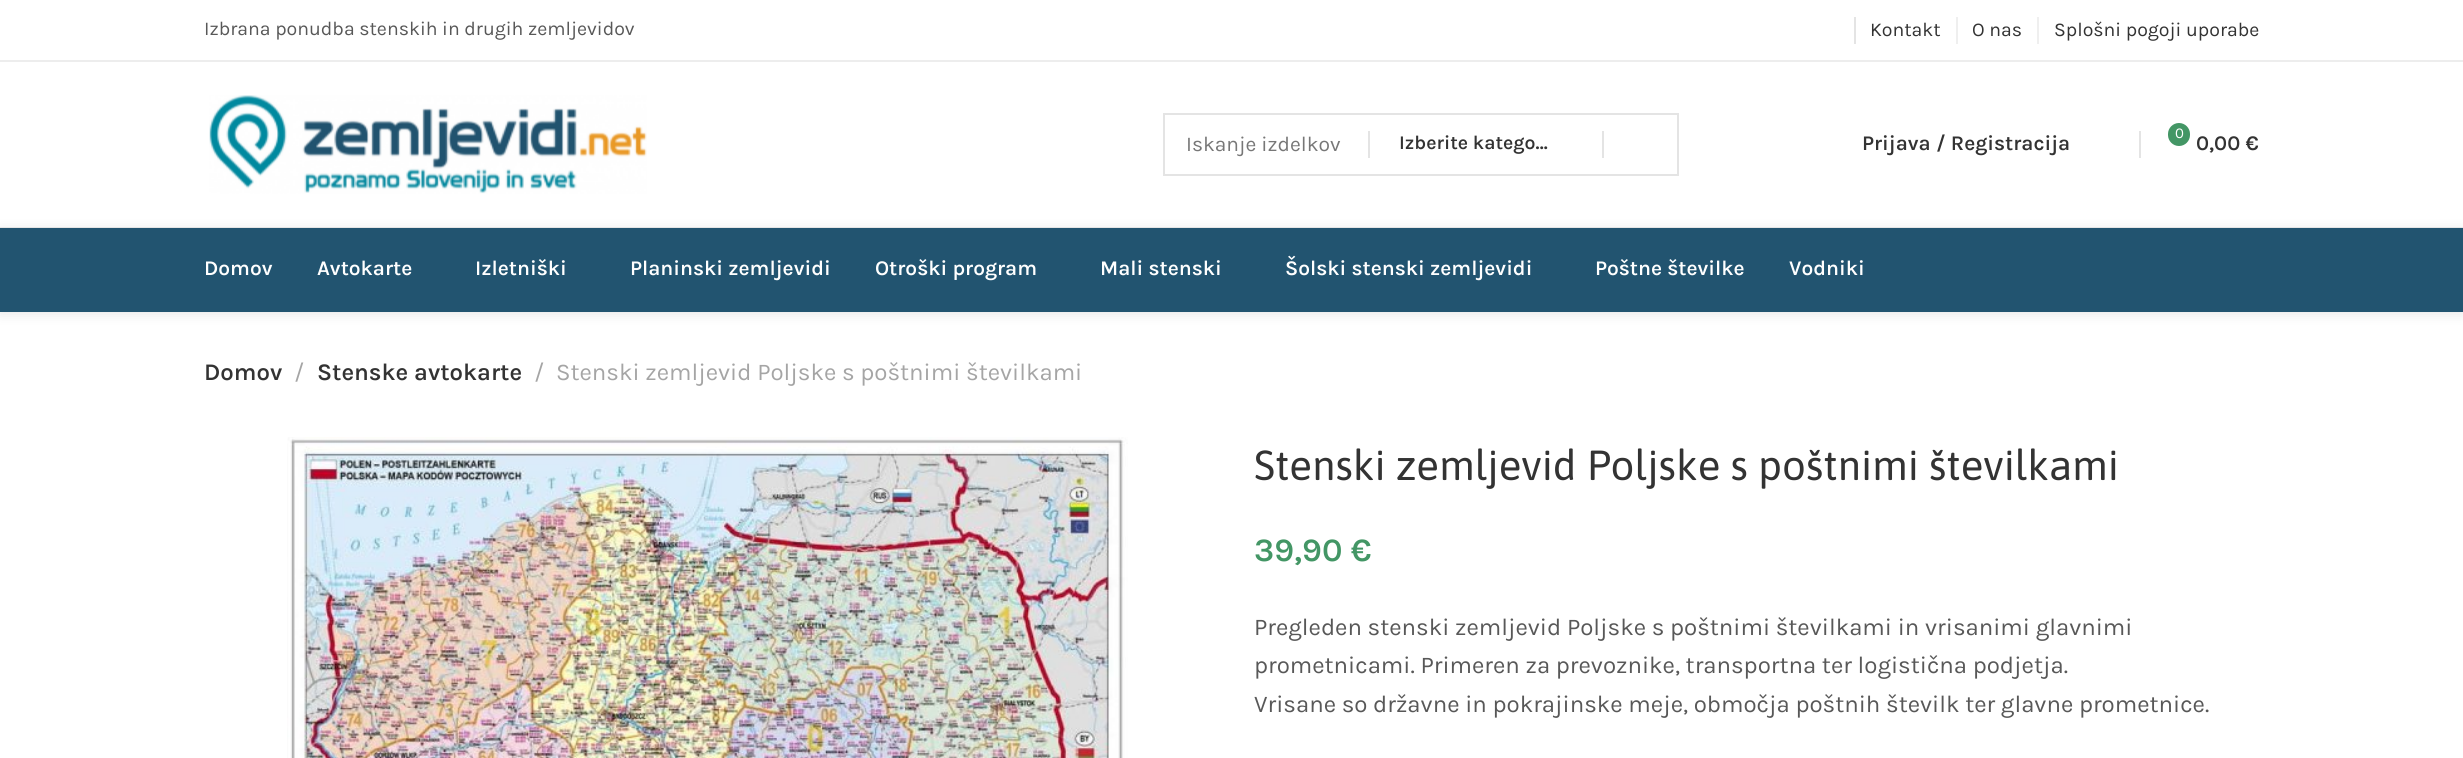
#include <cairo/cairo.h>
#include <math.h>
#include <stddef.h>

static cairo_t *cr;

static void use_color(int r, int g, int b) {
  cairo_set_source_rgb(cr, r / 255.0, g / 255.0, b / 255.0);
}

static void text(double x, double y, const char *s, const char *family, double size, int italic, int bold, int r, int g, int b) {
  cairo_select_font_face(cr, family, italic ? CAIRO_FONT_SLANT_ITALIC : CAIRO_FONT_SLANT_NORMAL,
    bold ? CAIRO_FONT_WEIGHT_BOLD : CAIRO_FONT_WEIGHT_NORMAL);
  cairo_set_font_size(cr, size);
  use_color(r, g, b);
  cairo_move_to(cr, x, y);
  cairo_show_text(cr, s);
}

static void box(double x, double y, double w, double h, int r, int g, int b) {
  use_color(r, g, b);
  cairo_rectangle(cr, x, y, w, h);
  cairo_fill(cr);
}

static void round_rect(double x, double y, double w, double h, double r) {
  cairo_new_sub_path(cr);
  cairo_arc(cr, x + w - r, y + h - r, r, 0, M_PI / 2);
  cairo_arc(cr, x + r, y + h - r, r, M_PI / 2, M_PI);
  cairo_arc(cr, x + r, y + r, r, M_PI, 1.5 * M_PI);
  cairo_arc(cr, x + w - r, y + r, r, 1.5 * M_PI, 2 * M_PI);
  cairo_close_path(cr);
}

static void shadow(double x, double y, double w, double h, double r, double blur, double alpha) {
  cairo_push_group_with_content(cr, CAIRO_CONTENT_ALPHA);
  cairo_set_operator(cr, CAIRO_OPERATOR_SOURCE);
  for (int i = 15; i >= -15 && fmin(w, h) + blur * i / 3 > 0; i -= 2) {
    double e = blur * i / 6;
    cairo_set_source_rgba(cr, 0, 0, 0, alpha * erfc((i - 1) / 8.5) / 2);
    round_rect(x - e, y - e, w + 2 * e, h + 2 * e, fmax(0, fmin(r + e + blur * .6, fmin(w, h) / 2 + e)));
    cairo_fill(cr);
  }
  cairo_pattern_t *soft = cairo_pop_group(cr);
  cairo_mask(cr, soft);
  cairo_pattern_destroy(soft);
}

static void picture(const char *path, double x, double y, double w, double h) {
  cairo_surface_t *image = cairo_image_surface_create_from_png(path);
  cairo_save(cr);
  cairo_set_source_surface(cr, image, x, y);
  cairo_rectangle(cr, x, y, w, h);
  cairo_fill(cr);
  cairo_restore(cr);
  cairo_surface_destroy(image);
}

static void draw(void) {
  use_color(255, 255, 255);
  cairo_paint(cr);
  box(0, 60, 2463, 2, 237, 237, 237);
  box(1854, 17, 2, 27, 228, 228, 228);
  box(1956, 17, 2, 27, 239, 239, 239);
  box(2037, 17, 2, 27, 239, 239, 239);
  box(0, 227, 2463, 1, 237, 237, 237);
  picture("img_01.png", 209, 95, 438, 99);
  cairo_rectangle(cr, 1164, 114, 514, 61);
  use_color(228, 228, 228);
  cairo_stroke(cr);
  box(1368, 131, 2, 27, 228, 228, 228);
  box(1602, 131, 2, 27, 228, 228, 228);
  box(2139, 131, 2, 27, 228, 228, 228);
  use_color(67, 150, 101);
  round_rect(2168, 123, 22, 23, 11);
  cairo_fill(cr);
  use_color(0, 0, 0);
  shadow(0, 230, 2463, 84, 0, 6, 0.1);
  box(0, 228, 2463, 84, 34, 84, 112);
  picture("img_02.png", 287, 437, 841, 321);
  text(204, 35, "Izbrana ponudba stenskih in drugih zemljevidov", "Karla", 19.5, 0, 0, 88, 88, 88);
  text(1870, 36, "Kontakt", "Karla", 19.5, 0, 0, 51, 51, 51);
  text(1972, 36, "O nas", "Karla", 19.5, 0, 0, 51, 51, 51);
  text(2054, 36, "Splošni pogoji uporabe", "Karla", 19.5, 0, 0, 51, 51, 51);
  text(1186, 151, "Iskanje izdelkov", "Karla", 21, 0, 0, 119, 119, 119);
  text(1399, 149, "Izberite katego…", "Karla SemiBold", 19.5, 0, 0, 51, 51, 51);
  text(1862, 150, "Prijava / Registracija", "Karla SemiBold", 21, 0, 0, 51, 51, 51);
  text(2175, 138, "0", "Karla", 15, 0, 0, 255, 255, 255);
  text(2196, 150, "0,00 €", "Karla SemiBold", 21, 0, 0, 51, 51, 51);
  text(204, 275, "Domov", "Karla SemiBold", 21, 0, 0, 255, 255, 255);
  text(317, 275, "Avtokarte", "Karla SemiBold", 21, 0, 0, 255, 255, 255);
  text(475, 275, "Izletniški", "Karla SemiBold", 21, 0, 0, 255, 255, 255);
  text(630, 275, "Planinski zemljevidi", "Karla SemiBold", 21, 0, 0, 255, 255, 255);
  text(875, 275, "Otroški program", "Karla SemiBold", 21, 0, 0, 255, 255, 255);
  text(1100, 275, "Mali stenski", "Karla SemiBold", 21, 0, 0, 255, 255, 255);
  text(1285, 275, "Šolski stenski zemljevidi", "Karla SemiBold", 21, 0, 0, 255, 255, 255);
  text(1595, 275, "Poštne številke", "Karla SemiBold", 21, 0, 0, 255, 255, 255);
  text(1789, 275, "Vodniki", "Karla SemiBold", 21, 0, 0, 255, 255, 255);
  text(204, 380, "Domov", "Karla SemiBold", 24, 0, 0, 51, 51, 51);
  text(294, 380, "/", "Karla", 24, 0, 0, 165, 165, 165);
  text(317, 380, "Stenske avtokarte", "Karla SemiBold", 24, 0, 0, 51, 51, 51);
  text(534, 380, "/", "Karla", 24, 0, 0, 165, 165, 165);
  text(556, 380, "Stenski zemljevid Poljske s poštnimi številkami", "Karla", 24, 0, 0, 165, 165, 165);
  text(1254, 480, "Stenski zemljevid Poljske s poštnimi številkami", "Asap", 42, 0, 0, 51, 51, 51);
  text(1254, 561, "39,90 €", "Karla SemiBold", 33, 0, 0, 67, 150, 101);
  text(1254, 635, "Pregleden stenski zemljevid Poljske s poštnimi številkami in vrisanimi glavnimi", "Karla", 24, 0, 0, 88, 88, 88);
  text(1254, 673, "prometnicami. Primeren za prevoznike, transportna ter logistična podjetja.", "Karla", 24, 0, 0, 88, 88, 88);
  text(1254, 712, "Vrisane so državne in pokrajinske meje, območja poštnih številk ter glavne prometnice.", "Karla", 24, 0, 0, 88, 88, 88);
}

int main(void) {
  cairo_surface_t *surface = cairo_image_surface_create(CAIRO_FORMAT_RGB24, 2463, 758);
  cr = cairo_create(surface);
  cairo_font_options_t *options = cairo_font_options_create();
  cairo_font_options_set_hint_metrics(options, CAIRO_HINT_METRICS_OFF);
  cairo_font_options_set_hint_style(options, CAIRO_HINT_STYLE_NONE);
  cairo_set_font_options(cr, options);
  cairo_set_miter_limit(cr, 4);
  draw();
  cairo_surface_write_to_png(surface, "out.png");
  cairo_font_options_destroy(options);
  cairo_destroy(cr);
  cairo_surface_destroy(surface);
  return 0;
}
